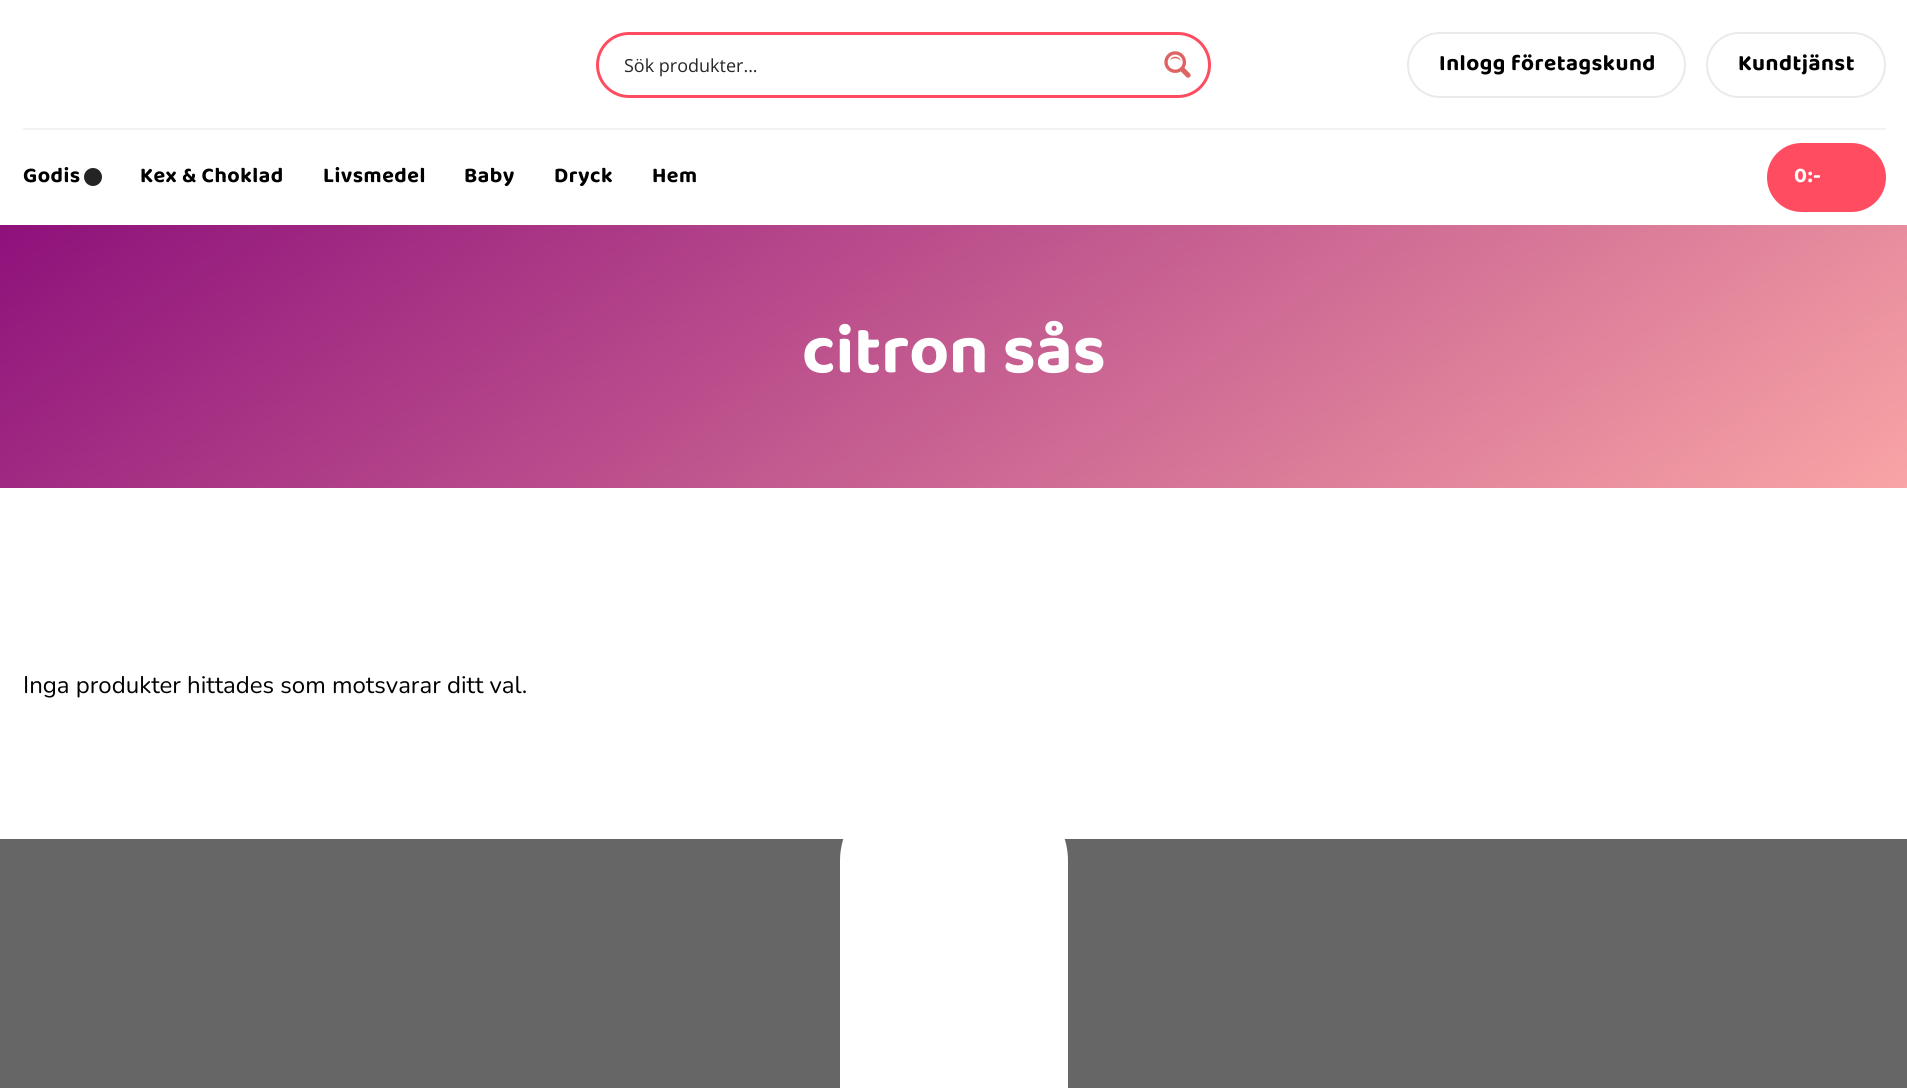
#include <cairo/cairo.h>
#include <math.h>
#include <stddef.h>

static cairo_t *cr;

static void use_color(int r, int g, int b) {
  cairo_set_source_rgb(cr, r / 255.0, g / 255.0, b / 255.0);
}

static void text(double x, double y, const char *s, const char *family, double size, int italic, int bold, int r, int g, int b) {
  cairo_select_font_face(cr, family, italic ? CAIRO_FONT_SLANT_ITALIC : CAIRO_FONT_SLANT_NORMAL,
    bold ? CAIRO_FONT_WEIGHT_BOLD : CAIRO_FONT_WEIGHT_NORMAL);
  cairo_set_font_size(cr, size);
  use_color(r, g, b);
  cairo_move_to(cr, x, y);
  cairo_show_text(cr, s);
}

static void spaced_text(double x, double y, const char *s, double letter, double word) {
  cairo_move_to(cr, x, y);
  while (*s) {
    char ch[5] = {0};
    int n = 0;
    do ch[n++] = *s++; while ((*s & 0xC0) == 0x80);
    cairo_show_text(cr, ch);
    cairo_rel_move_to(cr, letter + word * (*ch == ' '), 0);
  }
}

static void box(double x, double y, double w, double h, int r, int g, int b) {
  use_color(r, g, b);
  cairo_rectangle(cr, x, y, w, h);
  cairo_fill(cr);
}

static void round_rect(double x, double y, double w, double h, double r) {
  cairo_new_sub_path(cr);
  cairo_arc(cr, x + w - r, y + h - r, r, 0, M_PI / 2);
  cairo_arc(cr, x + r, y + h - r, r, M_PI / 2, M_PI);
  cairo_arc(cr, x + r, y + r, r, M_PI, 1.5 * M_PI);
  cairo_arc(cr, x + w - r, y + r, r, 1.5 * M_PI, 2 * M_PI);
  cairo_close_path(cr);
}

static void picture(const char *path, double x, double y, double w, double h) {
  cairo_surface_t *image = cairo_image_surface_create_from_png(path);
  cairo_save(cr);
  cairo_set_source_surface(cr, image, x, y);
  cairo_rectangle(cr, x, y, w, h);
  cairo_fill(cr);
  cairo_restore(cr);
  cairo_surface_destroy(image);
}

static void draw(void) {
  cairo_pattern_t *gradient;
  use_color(255, 255, 255);
  cairo_paint(cr);
  round_rect(597.5, 33.5, 612, 63, 31.5);
  use_color(255, 76, 96);
  cairo_set_line_width(cr, 3);
  cairo_stroke(cr);
  picture("img_01.png", 1164, 51, 27, 27);
  round_rect(1408, 33, 277, 64, 32);
  use_color(234, 234, 234);
  cairo_set_line_width(cr, 2);
  cairo_stroke(cr);
  round_rect(1707, 33, 178, 64, 32);
  cairo_stroke(cr);
  box(23, 128, 1863, 2, 242, 242, 242);
  use_color(36, 36, 36);
  cairo_arc(cr, 93, 177, 9, 0, 2 * M_PI);
  cairo_fill(cr);
  use_color(255, 76, 96);
  round_rect(1768, 144, 117, 67, 33.5);
  cairo_fill_preserve(cr);
  cairo_stroke(cr);
  gradient = cairo_pattern_create_linear(1330, 893, 578, -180);
  cairo_pattern_add_color_stop_rgba(gradient, 0, 0.976, 0.647, 0.647, 1);
  cairo_pattern_add_color_stop_rgba(gradient, 1, 0.557, 0.067, 0.482, 1);
  cairo_set_source(cr, gradient);
  cairo_pattern_destroy(gradient);
  cairo_rectangle(cr, 0, 225, 1907, 263);
  cairo_fill(cr);
  box(0, 839, 1907, 249, 102, 102, 102);
  use_color(255, 255, 255);
  round_rect(840, 786, 228, 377, 75);
  cairo_fill(cr);
  text(624, 72, "Sök produkter...", "Open Sans", 18, 0, 0, 38, 38, 38);
  cairo_select_font_face(cr, "Baloo 2", CAIRO_FONT_SLANT_NORMAL, CAIRO_FONT_WEIGHT_BOLD);
  cairo_set_font_size(cr, 22.5);
  use_color(0, 0, 0);
  spaced_text(1439, 70, "Inlogg företagskund", 0.5, 0);
  spaced_text(1738, 70, "Kundtjänst", 0.5, 0);
  cairo_set_font_size(cr, 21.5);
  spaced_text(23, 182, "Godis", 0.5, 0);
  spaced_text(140, 182, "Kex & Choklad", 0.5, 0);
  spaced_text(323, 182, "Livsmedel", 0.5, 0);
  spaced_text(464, 182, "Baby", 0.5, 0);
  spaced_text(554, 182, "Dryck", 0.5, 0);
  spaced_text(652, 182, "Hem", 0.5, 0);
  use_color(255, 255, 255);
  spaced_text(1794, 182, "0:-", 0.5, 0);
  text(802, 372, "citron sås", "Baloo 2", 69, 0, 1, 255, 255, 255);
  text(23, 693, "Inga produkter hittades som motsvarar ditt val.", "Nunito", 24, 0, 0, 0, 0, 0);
}

int main(void) {
  cairo_surface_t *surface = cairo_image_surface_create(CAIRO_FORMAT_RGB24, 1907, 1088);
  cr = cairo_create(surface);
  cairo_font_options_t *options = cairo_font_options_create();
  cairo_font_options_set_hint_metrics(options, CAIRO_HINT_METRICS_OFF);
  cairo_font_options_set_hint_style(options, CAIRO_HINT_STYLE_NONE);
  cairo_set_font_options(cr, options);
  cairo_set_miter_limit(cr, 4);
  draw();
  cairo_surface_write_to_png(surface, "out.png");
  cairo_font_options_destroy(options);
  cairo_destroy(cr);
  cairo_surface_destroy(surface);
  return 0;
}
